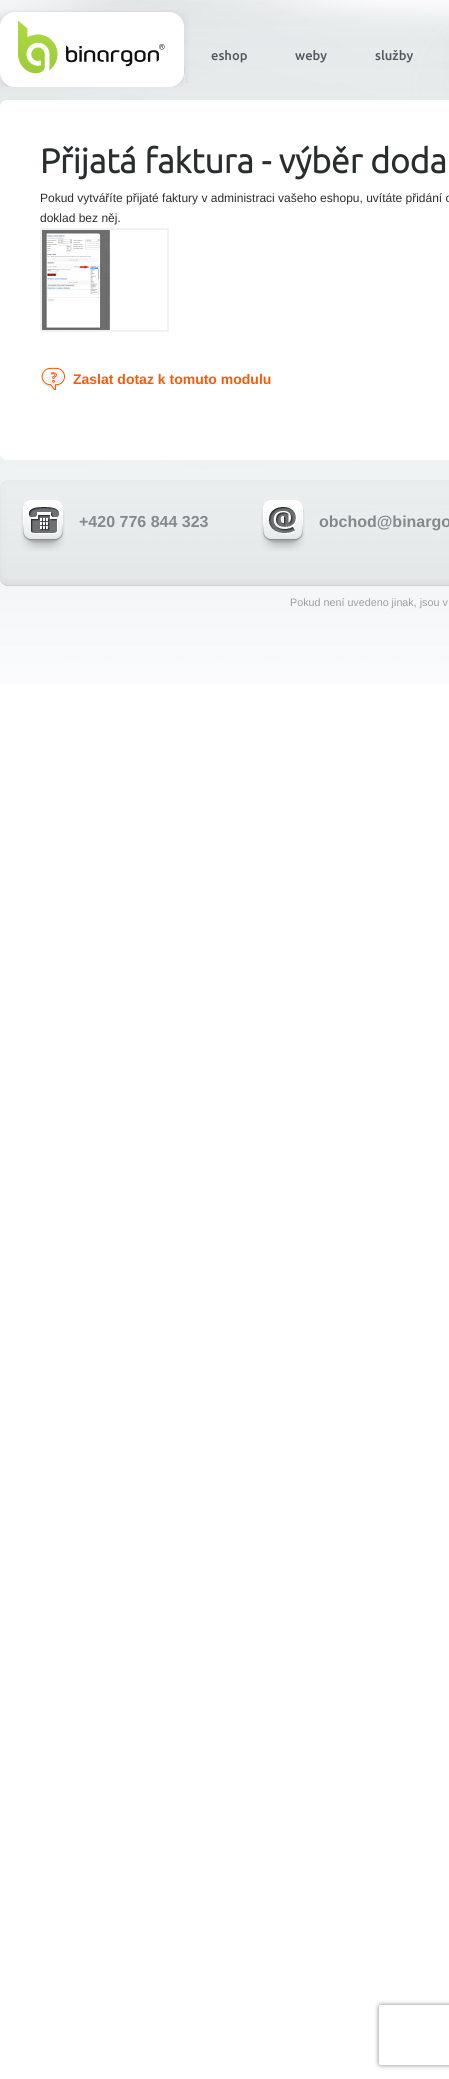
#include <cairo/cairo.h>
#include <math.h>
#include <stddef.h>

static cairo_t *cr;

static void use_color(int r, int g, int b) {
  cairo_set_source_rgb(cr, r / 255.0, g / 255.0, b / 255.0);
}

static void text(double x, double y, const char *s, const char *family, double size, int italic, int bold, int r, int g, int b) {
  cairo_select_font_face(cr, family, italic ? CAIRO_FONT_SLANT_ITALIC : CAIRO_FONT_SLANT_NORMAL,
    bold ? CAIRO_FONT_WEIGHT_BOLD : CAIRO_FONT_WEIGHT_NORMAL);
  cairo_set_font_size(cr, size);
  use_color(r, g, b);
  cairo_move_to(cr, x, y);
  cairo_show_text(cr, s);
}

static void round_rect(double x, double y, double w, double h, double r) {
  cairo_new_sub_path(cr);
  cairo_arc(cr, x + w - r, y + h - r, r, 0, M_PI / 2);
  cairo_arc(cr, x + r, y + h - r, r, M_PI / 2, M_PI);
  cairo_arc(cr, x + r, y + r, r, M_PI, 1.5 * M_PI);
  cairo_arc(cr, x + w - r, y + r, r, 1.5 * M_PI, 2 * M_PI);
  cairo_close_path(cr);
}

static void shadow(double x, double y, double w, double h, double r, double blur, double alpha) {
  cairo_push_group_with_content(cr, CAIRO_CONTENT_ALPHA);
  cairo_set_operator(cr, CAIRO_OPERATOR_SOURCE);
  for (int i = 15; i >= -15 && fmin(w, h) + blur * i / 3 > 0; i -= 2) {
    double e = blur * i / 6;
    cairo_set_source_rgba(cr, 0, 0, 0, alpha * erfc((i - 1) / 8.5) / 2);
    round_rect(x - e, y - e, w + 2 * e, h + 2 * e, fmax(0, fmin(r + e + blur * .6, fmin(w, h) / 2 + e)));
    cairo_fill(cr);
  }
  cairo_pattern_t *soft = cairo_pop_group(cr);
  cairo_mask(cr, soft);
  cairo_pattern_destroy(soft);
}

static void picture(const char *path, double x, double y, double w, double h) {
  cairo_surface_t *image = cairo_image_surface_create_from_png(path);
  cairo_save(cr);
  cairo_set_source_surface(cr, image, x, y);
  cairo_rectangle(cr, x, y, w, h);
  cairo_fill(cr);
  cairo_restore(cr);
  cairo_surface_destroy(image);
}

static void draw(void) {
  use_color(255, 255, 255);
  cairo_paint(cr);
  picture("img_01.png", 0, 0, 449, 684);
  picture("img_02.png", 0, 10, 189, 77);
  use_color(255, 255, 255);
  round_rect(0, 100, 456, 360, 7);
  cairo_fill(cr);
  cairo_rectangle(cr, 41, 229, 127, 102);
  use_color(239, 242, 242);
  cairo_stroke(cr);
  picture("img_03.png", 42, 230, 68, 100);
  picture("img_04.png", 41, 367, 24, 24);
  picture("img_05.png", 0, 480, 9, 106);
  picture("img_06.png", 9, 480, 440, 106);
  picture("img_07.png", 21, 500, 44, 51);
  picture("img_08.png", 261, 500, 44, 51);
  cairo_save(cr);
  cairo_set_fill_rule(cr, CAIRO_FILL_RULE_EVEN_ODD);
  cairo_new_path(cr);
  cairo_move_to(cr, 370, 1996);
  cairo_line_to(cr, 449, 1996);
  cairo_line_to(cr, 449, 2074);
  cairo_line_to(cr, 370, 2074);
  cairo_close_path(cr);
  cairo_move_to(cr, 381, 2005);
  cairo_line_to(cr, 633, 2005);
  cairo_curve_to(cr, 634, 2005, 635, 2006, 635, 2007);
  cairo_line_to(cr, 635, 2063);
  cairo_curve_to(cr, 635, 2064, 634, 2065, 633, 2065);
  cairo_line_to(cr, 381, 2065);
  cairo_curve_to(cr, 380, 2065, 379, 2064, 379, 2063);
  cairo_line_to(cr, 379, 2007);
  cairo_curve_to(cr, 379, 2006, 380, 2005, 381, 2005);
  cairo_close_path(cr);
  cairo_clip(cr);
  use_color(128, 128, 128);
  shadow(379, 2005, 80, 60, 2, 2.5, 1);
  cairo_restore(cr);
  text(211, 60, "eshop", "Ubuntu Medium", 13, 0, 0, 84, 88, 92);
  text(295, 60, "weby", "Ubuntu Medium", 13, 0, 0, 84, 88, 92);
  text(375, 60, "služby", "Ubuntu Medium", 13, 0, 0, 84, 88, 92);
  text(40, 173, "Přijatá faktura - výběr doda", "Ubuntu", 34, 0, 1, 42, 45, 46);
  text(40, 202, "Pokud vytváříte přijaté faktury v administraci vašeho eshopu, uvítáte přidání o", "Liberation Sans", 12, 0, 0, 42, 45, 46);
  text(40, 222, "doklad bez něj.", "Liberation Sans", 12, 0, 0, 42, 45, 46);
  text(73, 384, "Zaslat dotaz k tomuto modulu", "Liberation Sans", 14, 0, 1, 255, 89, 6);
  text(79, 527, "+420 776 844 323", "Liberation Sans", 16, 0, 1, 132, 138, 140);
  text(319, 527, "obchod@binargo", "Liberation Sans", 16, 0, 1, 132, 138, 140);
  text(290, 606, "Pokud není uvedeno jinak, jsou v", "Liberation Sans", 10.75, 0, 0, 155, 160, 162);
}

int main(void) {
  cairo_surface_t *surface = cairo_image_surface_create(CAIRO_FORMAT_RGB24, 449, 2079);
  cr = cairo_create(surface);
  cairo_font_options_t *options = cairo_font_options_create();
  cairo_font_options_set_hint_metrics(options, CAIRO_HINT_METRICS_OFF);
  cairo_font_options_set_hint_style(options, CAIRO_HINT_STYLE_NONE);
  cairo_set_font_options(cr, options);
  cairo_set_miter_limit(cr, 4);
  draw();
  cairo_surface_write_to_png(surface, "out.png");
  cairo_font_options_destroy(options);
  cairo_destroy(cr);
  cairo_surface_destroy(surface);
  return 0;
}
